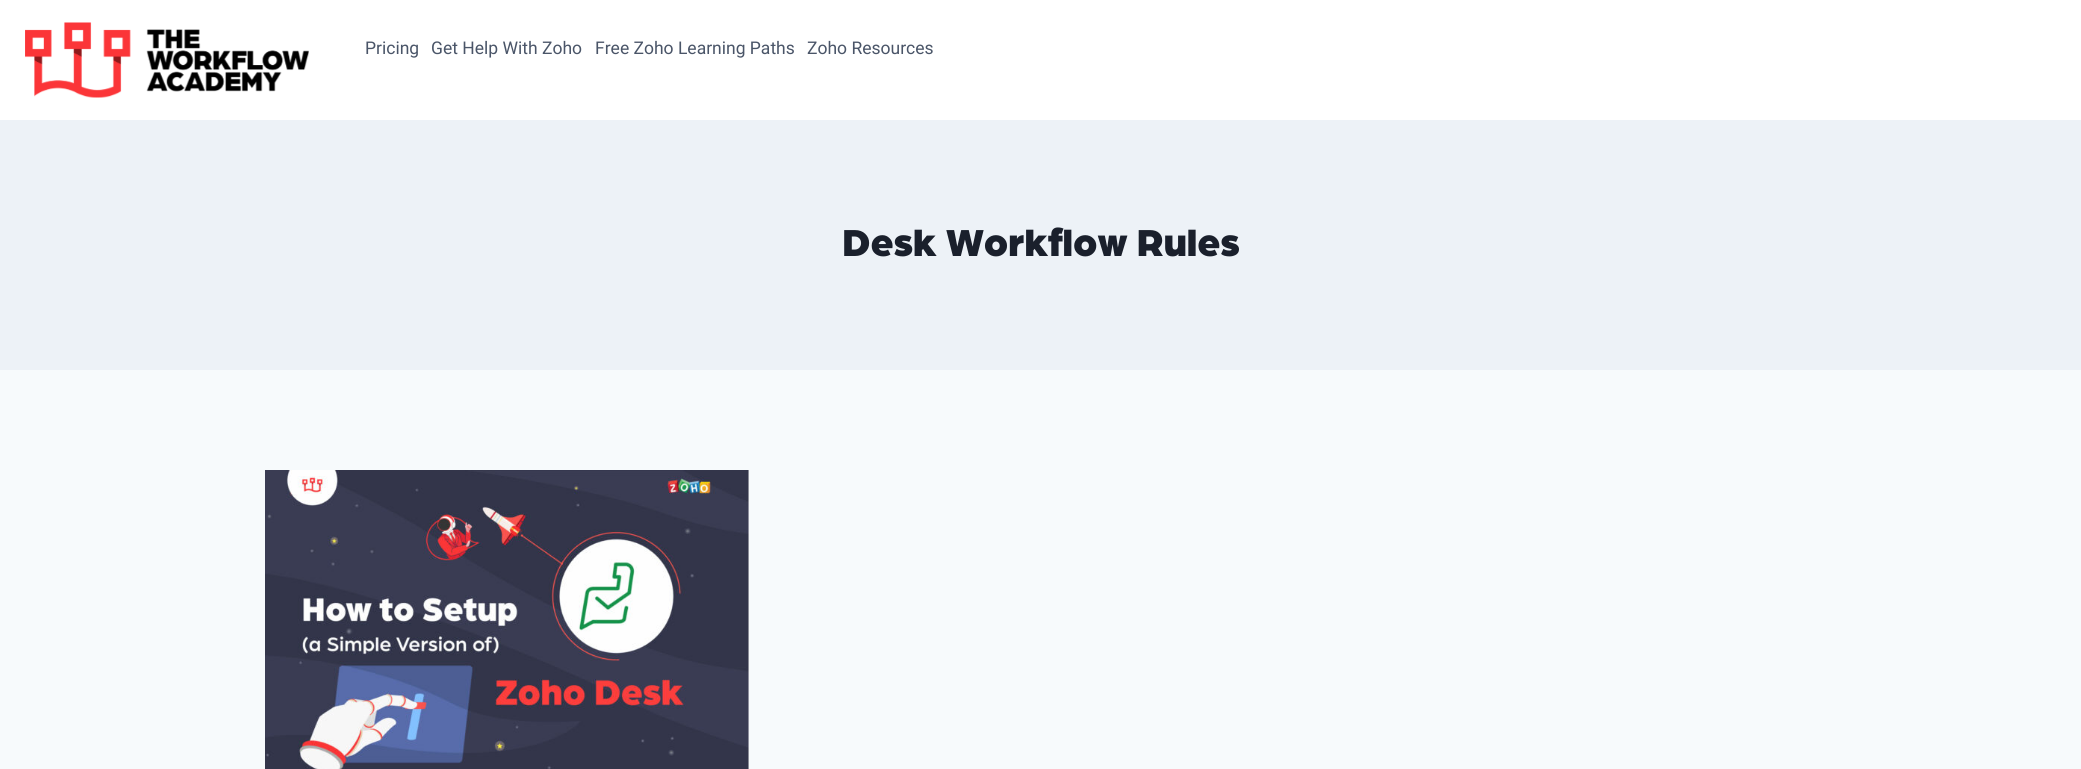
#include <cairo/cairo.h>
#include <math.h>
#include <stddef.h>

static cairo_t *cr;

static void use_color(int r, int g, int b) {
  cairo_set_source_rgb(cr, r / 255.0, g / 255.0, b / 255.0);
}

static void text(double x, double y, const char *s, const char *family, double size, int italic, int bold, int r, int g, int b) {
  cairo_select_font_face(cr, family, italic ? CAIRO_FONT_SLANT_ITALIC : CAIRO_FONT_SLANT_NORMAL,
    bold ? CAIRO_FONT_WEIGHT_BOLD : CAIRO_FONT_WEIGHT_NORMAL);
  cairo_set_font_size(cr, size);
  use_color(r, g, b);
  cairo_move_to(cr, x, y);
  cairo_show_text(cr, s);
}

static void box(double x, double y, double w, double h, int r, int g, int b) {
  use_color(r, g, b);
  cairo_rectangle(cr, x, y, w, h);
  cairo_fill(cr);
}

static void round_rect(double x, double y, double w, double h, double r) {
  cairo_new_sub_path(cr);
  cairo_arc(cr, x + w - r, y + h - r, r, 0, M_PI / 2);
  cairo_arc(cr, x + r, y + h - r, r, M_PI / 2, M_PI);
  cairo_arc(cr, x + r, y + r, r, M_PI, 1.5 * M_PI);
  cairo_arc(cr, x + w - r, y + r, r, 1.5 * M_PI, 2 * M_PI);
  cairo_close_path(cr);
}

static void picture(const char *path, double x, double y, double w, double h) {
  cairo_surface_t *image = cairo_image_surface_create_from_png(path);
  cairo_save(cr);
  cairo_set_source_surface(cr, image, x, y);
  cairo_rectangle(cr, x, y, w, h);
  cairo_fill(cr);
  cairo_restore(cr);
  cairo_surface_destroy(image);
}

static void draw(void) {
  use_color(247, 250, 252);
  cairo_paint(cr);
  box(0, 0, 2081, 120, 255, 255, 255);
  picture("img_01.png", 25, 22, 284, 76);
  box(0, 120, 2081, 250, 237, 242, 247);
  use_color(255, 255, 255);
  round_rect(265, 470, 484, 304, 5);
  cairo_fill(cr);
  picture("img_02.png", 265, 470, 484, 299);
  text(365, 54, "Pricing", "Roboto", 17.5, 0, 0, 74, 85, 104);
  text(431, 54, "Get Help With Zoho", "Roboto", 17.5, 0, 0, 74, 85, 104);
  text(595, 54, "Free Zoho Learning Paths", "Roboto", 17.5, 0, 0, 74, 85, 104);
  text(807, 54, "Zoho Resources", "Roboto", 17.5, 0, 0, 74, 85, 104);
  text(842, 256, "Desk Workflow Rules", "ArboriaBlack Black", 40, 0, 0, 26, 32, 44);
}

int main(void) {
  cairo_surface_t *surface = cairo_image_surface_create(CAIRO_FORMAT_RGB24, 2081, 769);
  cr = cairo_create(surface);
  cairo_font_options_t *options = cairo_font_options_create();
  cairo_font_options_set_hint_metrics(options, CAIRO_HINT_METRICS_OFF);
  cairo_font_options_set_hint_style(options, CAIRO_HINT_STYLE_NONE);
  cairo_set_font_options(cr, options);
  cairo_set_miter_limit(cr, 4);
  draw();
  cairo_surface_write_to_png(surface, "out.png");
  cairo_font_options_destroy(options);
  cairo_destroy(cr);
  cairo_surface_destroy(surface);
  return 0;
}
